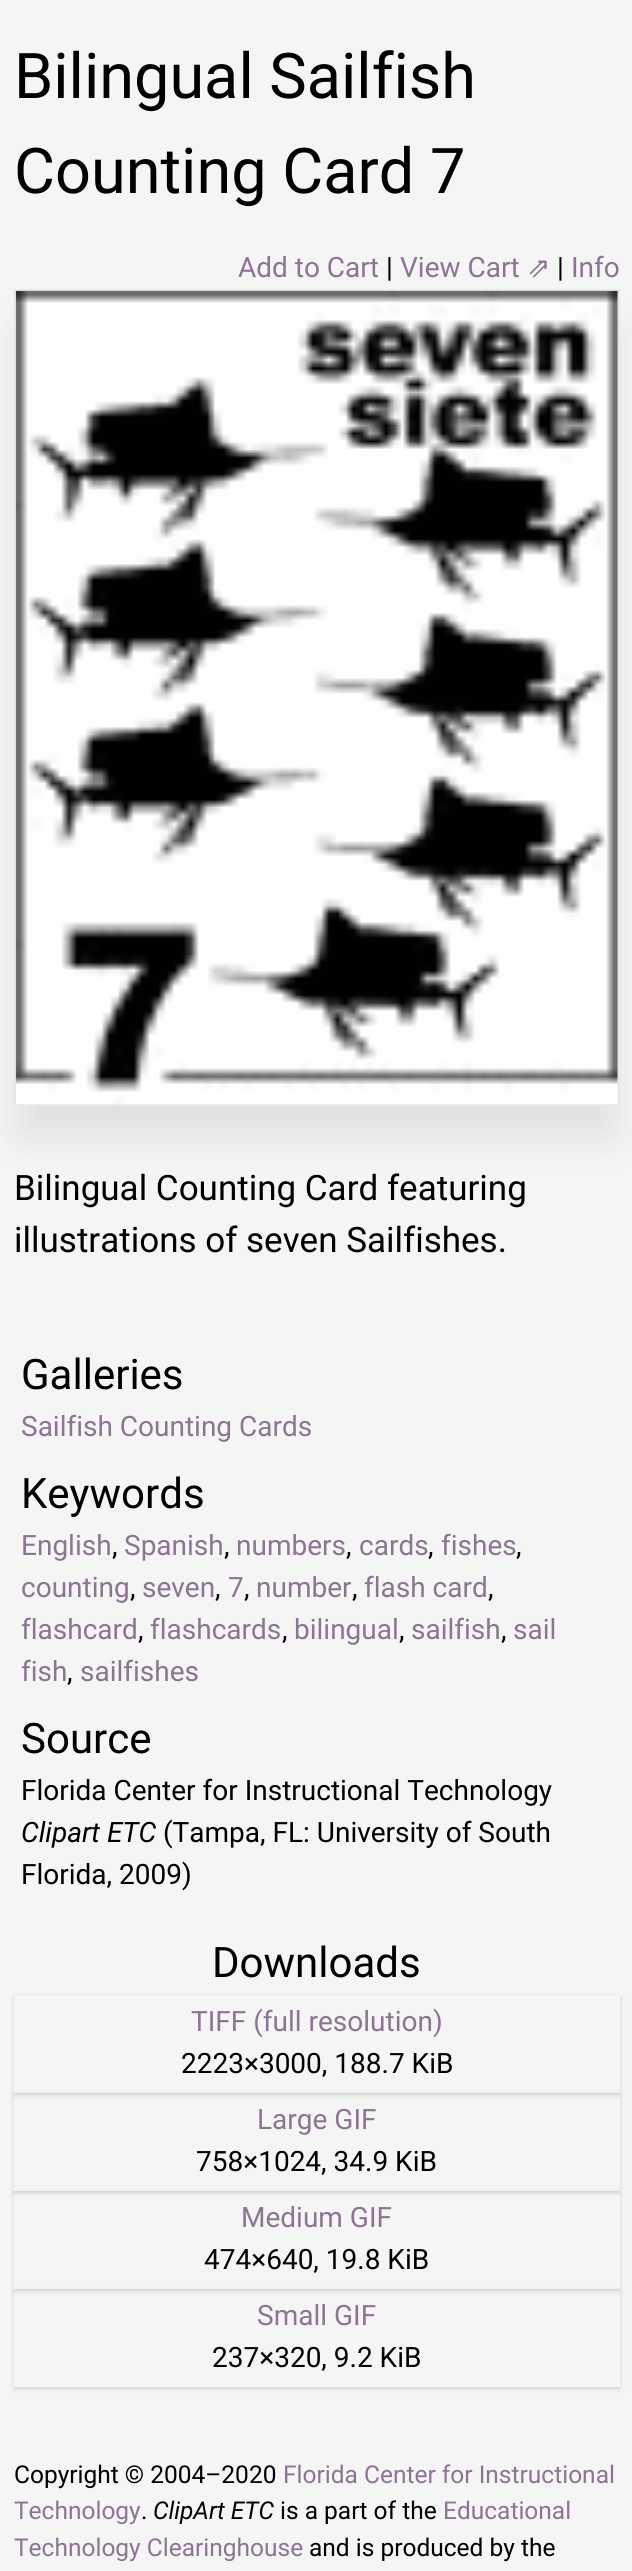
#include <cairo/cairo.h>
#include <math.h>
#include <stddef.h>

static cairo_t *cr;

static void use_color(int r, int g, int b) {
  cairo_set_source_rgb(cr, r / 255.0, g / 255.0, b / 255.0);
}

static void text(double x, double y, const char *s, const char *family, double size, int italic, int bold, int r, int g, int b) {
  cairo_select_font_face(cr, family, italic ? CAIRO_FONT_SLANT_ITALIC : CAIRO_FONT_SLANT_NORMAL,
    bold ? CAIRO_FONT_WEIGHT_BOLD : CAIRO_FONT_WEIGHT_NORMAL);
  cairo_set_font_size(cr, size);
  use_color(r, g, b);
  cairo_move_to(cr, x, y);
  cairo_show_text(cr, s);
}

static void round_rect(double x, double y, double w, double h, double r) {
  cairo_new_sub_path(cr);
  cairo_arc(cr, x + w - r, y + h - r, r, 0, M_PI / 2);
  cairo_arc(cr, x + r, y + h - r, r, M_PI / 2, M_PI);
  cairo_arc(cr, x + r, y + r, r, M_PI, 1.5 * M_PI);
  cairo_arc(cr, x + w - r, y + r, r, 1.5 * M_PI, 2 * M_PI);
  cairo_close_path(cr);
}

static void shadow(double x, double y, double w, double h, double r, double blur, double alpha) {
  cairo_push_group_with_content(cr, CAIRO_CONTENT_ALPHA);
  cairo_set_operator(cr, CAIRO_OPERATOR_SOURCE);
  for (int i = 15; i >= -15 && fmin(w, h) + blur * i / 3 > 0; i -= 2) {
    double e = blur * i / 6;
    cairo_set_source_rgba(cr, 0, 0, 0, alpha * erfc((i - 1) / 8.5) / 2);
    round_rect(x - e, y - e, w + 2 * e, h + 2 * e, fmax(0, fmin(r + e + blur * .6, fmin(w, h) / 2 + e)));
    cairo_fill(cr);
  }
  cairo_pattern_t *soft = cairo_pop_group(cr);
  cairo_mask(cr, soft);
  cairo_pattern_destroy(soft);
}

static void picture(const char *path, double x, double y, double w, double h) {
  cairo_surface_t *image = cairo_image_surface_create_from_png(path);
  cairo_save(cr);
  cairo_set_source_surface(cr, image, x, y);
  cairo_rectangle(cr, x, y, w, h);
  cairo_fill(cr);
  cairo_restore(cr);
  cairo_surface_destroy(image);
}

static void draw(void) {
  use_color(245, 245, 245);
  cairo_paint(cr);
  use_color(0, 0, 0);
  shadow(23, 333, 588, 799, 0, 22, 0.1);
  cairo_rectangle(cr, 15, 290, 604, 815);
  use_color(226, 232, 240);
  cairo_stroke(cr);
  picture("img_01.png", 15, 290, 603, 815);
  cairo_save(cr);
  cairo_set_fill_rule(cr, CAIRO_FILL_RULE_EVEN_ODD);
  cairo_new_path(cr);
  cairo_move_to(cr, 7, 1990);
  cairo_line_to(cr, 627, 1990);
  cairo_line_to(cr, 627, 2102);
  cairo_line_to(cr, 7, 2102);
  cairo_close_path(cr);
  cairo_move_to(cr, 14, 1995);
  cairo_line_to(cr, 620, 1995);
  cairo_line_to(cr, 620, 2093);
  cairo_line_to(cr, 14, 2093);
  cairo_close_path(cr);
  cairo_clip(cr);
  use_color(0, 0, 0);
  shadow(14, 1997, 606, 98, 0, 2, 0.06);
  cairo_restore(cr);
  cairo_save(cr);
  cairo_set_fill_rule(cr, CAIRO_FILL_RULE_EVEN_ODD);
  cairo_new_path(cr);
  cairo_move_to(cr, 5, 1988);
  cairo_line_to(cr, 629, 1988);
  cairo_line_to(cr, 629, 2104);
  cairo_line_to(cr, 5, 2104);
  cairo_close_path(cr);
  cairo_move_to(cr, 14, 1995);
  cairo_line_to(cr, 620, 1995);
  cairo_line_to(cr, 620, 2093);
  cairo_line_to(cr, 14, 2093);
  cairo_close_path(cr);
  cairo_clip(cr);
  use_color(0, 0, 0);
  shadow(14, 1997, 606, 98, 0, 2.5, 0.1);
  cairo_restore(cr);
  cairo_save(cr);
  cairo_set_fill_rule(cr, CAIRO_FILL_RULE_EVEN_ODD);
  cairo_new_path(cr);
  cairo_move_to(cr, 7, 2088);
  cairo_line_to(cr, 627, 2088);
  cairo_line_to(cr, 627, 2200);
  cairo_line_to(cr, 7, 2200);
  cairo_close_path(cr);
  cairo_move_to(cr, 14, 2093);
  cairo_line_to(cr, 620, 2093);
  cairo_line_to(cr, 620, 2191);
  cairo_line_to(cr, 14, 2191);
  cairo_close_path(cr);
  cairo_clip(cr);
  use_color(0, 0, 0);
  shadow(14, 2095, 606, 98, 0, 2, 0.06);
  cairo_restore(cr);
  cairo_save(cr);
  cairo_set_fill_rule(cr, CAIRO_FILL_RULE_EVEN_ODD);
  cairo_new_path(cr);
  cairo_move_to(cr, 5, 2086);
  cairo_line_to(cr, 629, 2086);
  cairo_line_to(cr, 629, 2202);
  cairo_line_to(cr, 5, 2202);
  cairo_close_path(cr);
  cairo_move_to(cr, 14, 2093);
  cairo_line_to(cr, 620, 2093);
  cairo_line_to(cr, 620, 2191);
  cairo_line_to(cr, 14, 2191);
  cairo_close_path(cr);
  cairo_clip(cr);
  use_color(0, 0, 0);
  shadow(14, 2095, 606, 98, 0, 2.5, 0.1);
  cairo_restore(cr);
  cairo_save(cr);
  cairo_set_fill_rule(cr, CAIRO_FILL_RULE_EVEN_ODD);
  cairo_new_path(cr);
  cairo_move_to(cr, 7, 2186);
  cairo_line_to(cr, 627, 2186);
  cairo_line_to(cr, 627, 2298);
  cairo_line_to(cr, 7, 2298);
  cairo_close_path(cr);
  cairo_move_to(cr, 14, 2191);
  cairo_line_to(cr, 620, 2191);
  cairo_line_to(cr, 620, 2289);
  cairo_line_to(cr, 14, 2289);
  cairo_close_path(cr);
  cairo_clip(cr);
  use_color(0, 0, 0);
  shadow(14, 2193, 606, 98, 0, 2, 0.06);
  cairo_restore(cr);
  cairo_save(cr);
  cairo_set_fill_rule(cr, CAIRO_FILL_RULE_EVEN_ODD);
  cairo_new_path(cr);
  cairo_move_to(cr, 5, 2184);
  cairo_line_to(cr, 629, 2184);
  cairo_line_to(cr, 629, 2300);
  cairo_line_to(cr, 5, 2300);
  cairo_close_path(cr);
  cairo_move_to(cr, 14, 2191);
  cairo_line_to(cr, 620, 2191);
  cairo_line_to(cr, 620, 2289);
  cairo_line_to(cr, 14, 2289);
  cairo_close_path(cr);
  cairo_clip(cr);
  use_color(0, 0, 0);
  shadow(14, 2193, 606, 98, 0, 2.5, 0.1);
  cairo_restore(cr);
  cairo_save(cr);
  cairo_set_fill_rule(cr, CAIRO_FILL_RULE_EVEN_ODD);
  cairo_new_path(cr);
  cairo_move_to(cr, 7, 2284);
  cairo_line_to(cr, 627, 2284);
  cairo_line_to(cr, 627, 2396);
  cairo_line_to(cr, 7, 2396);
  cairo_close_path(cr);
  cairo_move_to(cr, 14, 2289);
  cairo_line_to(cr, 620, 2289);
  cairo_line_to(cr, 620, 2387);
  cairo_line_to(cr, 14, 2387);
  cairo_close_path(cr);
  cairo_clip(cr);
  use_color(0, 0, 0);
  shadow(14, 2291, 606, 98, 0, 2, 0.06);
  cairo_restore(cr);
  cairo_save(cr);
  cairo_set_fill_rule(cr, CAIRO_FILL_RULE_EVEN_ODD);
  cairo_new_path(cr);
  cairo_move_to(cr, 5, 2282);
  cairo_line_to(cr, 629, 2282);
  cairo_line_to(cr, 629, 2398);
  cairo_line_to(cr, 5, 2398);
  cairo_close_path(cr);
  cairo_move_to(cr, 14, 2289);
  cairo_line_to(cr, 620, 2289);
  cairo_line_to(cr, 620, 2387);
  cairo_line_to(cr, 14, 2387);
  cairo_close_path(cr);
  cairo_clip(cr);
  use_color(0, 0, 0);
  shadow(14, 2291, 606, 98, 0, 2.5, 0.1);
  cairo_restore(cr);
  text(14, 98, "Bilingual Sailfish", "Roboto", 63, 0, 0, 0, 0, 0);
  text(14, 193, "Counting Card 7", "Roboto", 63, 0, 0, 0, 0, 0);
  text(238, 277, "Add to Cart", "Roboto", 28, 0, 0, 141, 116, 147);
  text(386, 277, "|", "Roboto", 28, 0, 0, 0, 0, 0);
  text(400, 277, "View Cart", "Roboto", 28, 0, 0, 141, 116, 147);
  text(527, 277, "⇗", "DejaVu Sans", 28, 0, 0, 141, 116, 147);
  text(557, 277, "|", "Roboto", 28, 0, 0, 0, 0, 0);
  text(571, 277, "Info", "Roboto", 28, 0, 0, 141, 116, 147);
  text(14, 1200, "Bilingual Counting Card featuring", "Roboto", 35, 0, 0, 0, 0, 0);
  text(14, 1252, "illustrations of seven Sailfishes.", "Roboto", 35, 0, 0, 0, 0, 0);
  text(21, 1389, "Galleries", "Roboto", 42, 0, 0, 0, 0, 0);
  text(21, 1436, "Sailfish Counting Cards", "Roboto", 28, 0, 0, 141, 116, 147);
  text(21, 1508, "Keywords", "Roboto", 42, 0, 0, 0, 0, 0);
  text(21, 1555, "English", "Roboto", 28, 0, 0, 141, 116, 147);
  text(112, 1555, ",", "Roboto", 28, 0, 0, 0, 0, 0);
  text(124, 1555, "Spanish", "Roboto", 28, 0, 0, 141, 116, 147);
  text(224, 1555, ",", "Roboto", 28, 0, 0, 0, 0, 0);
  text(236, 1555, "numbers", "Roboto", 28, 0, 0, 141, 116, 147);
  text(346, 1555, ",", "Roboto", 28, 0, 0, 0, 0, 0);
  text(359, 1555, "cards", "Roboto", 28, 0, 0, 141, 116, 147);
  text(428, 1555, ",", "Roboto", 28, 0, 0, 0, 0, 0);
  text(441, 1555, "fishes", "Roboto", 28, 0, 0, 141, 116, 147);
  text(516, 1555, ",", "Roboto", 28, 0, 0, 0, 0, 0);
  text(21, 1597, "counting", "Roboto", 28, 0, 0, 141, 116, 147);
  text(130, 1597, ",", "Roboto", 28, 0, 0, 0, 0, 0);
  text(142, 1597, "seven", "Roboto", 28, 0, 0, 141, 116, 147);
  text(215, 1597, ",", "Roboto", 28, 0, 0, 0, 0, 0);
  text(228, 1597, "7", "Roboto", 28, 0, 0, 141, 116, 147);
  text(244, 1597, ",", "Roboto", 28, 0, 0, 0, 0, 0);
  text(256, 1597, "number", "Roboto", 28, 0, 0, 141, 116, 147);
  text(352, 1597, ",", "Roboto", 28, 0, 0, 0, 0, 0);
  text(364, 1597, "flash card", "Roboto", 28, 0, 0, 141, 116, 147);
  text(488, 1597, ",", "Roboto", 28, 0, 0, 0, 0, 0);
  text(21, 1639, "flashcard", "Roboto", 28, 0, 0, 141, 116, 147);
  text(138, 1639, ",", "Roboto", 28, 0, 0, 0, 0, 0);
  text(150, 1639, "flashcards", "Roboto", 28, 0, 0, 141, 116, 147);
  text(282, 1639, ",", "Roboto", 28, 0, 0, 0, 0, 0);
  text(294, 1639, "bilingual", "Roboto", 28, 0, 0, 141, 116, 147);
  text(399, 1639, ",", "Roboto", 28, 0, 0, 0, 0, 0);
  text(411, 1639, "sailfish", "Roboto", 28, 0, 0, 141, 116, 147);
  text(501, 1639, ",", "Roboto", 28, 0, 0, 0, 0, 0);
  text(513, 1639, "sail", "Roboto", 28, 0, 0, 141, 116, 147);
  text(21, 1681, "fish", "Roboto", 28, 0, 0, 141, 116, 147);
  text(67, 1681, ",", "Roboto", 28, 0, 0, 0, 0, 0);
  text(80, 1681, "sailfishes", "Roboto", 28, 0, 0, 141, 116, 147);
  text(21, 1753, "Source", "Roboto", 42, 0, 0, 0, 0, 0);
  text(21, 1800, "Florida Center for Instructional Technology", "Roboto", 28, 0, 0, 0, 0, 0);
  text(21, 1842, "Clipart ETC", "Roboto", 28, 1, 0, 0, 0, 0);
  text(163, 1842, "(Tampa, FL: University of South", "Roboto", 28, 0, 0, 0, 0, 0);
  text(21, 1884, "Florida, 2009)", "Roboto", 28, 0, 0, 0, 0, 0);
  text(212, 1977, "Downloads", "Roboto", 42, 0, 0, 0, 0, 0);
  text(191, 2031, "TIFF (full resolution)", "Roboto", 28, 0, 0, 141, 116, 147);
  text(181, 2073, "2223×3000, 188.7 KiB", "Roboto", 28, 0, 0, 0, 0, 0);
  text(257, 2129, "Large GIF", "Roboto", 28, 0, 0, 141, 116, 147);
  text(196, 2171, "758×1024, 34.9 KiB", "Roboto", 28, 0, 0, 0, 0, 0);
  text(241, 2227, "Medium GIF", "Roboto", 28, 0, 0, 141, 116, 147);
  text(204, 2269, "474×640, 19.8 KiB", "Roboto", 28, 0, 0, 0, 0, 0);
  text(257, 2325, "Small GIF", "Roboto", 28, 0, 0, 141, 116, 147);
  text(212, 2367, "237×320, 9.2 KiB", "Roboto", 28, 0, 0, 0, 0, 0);
  text(14, 2483, "Copyright © 2004–2020", "Roboto", 24.5, 0, 0, 0, 0, 0);
  text(283, 2483, "Florida Center for Instructional", "Roboto", 24.5, 0, 0, 141, 116, 147);
  text(14, 2519, "Technology", "Roboto", 24.5, 0, 0, 141, 116, 147);
  text(141, 2519, ".", "Roboto", 24.5, 0, 0, 0, 0, 0);
  text(153, 2519, "ClipArt ETC", "Roboto", 24.5, 1, 0, 0, 0, 0);
  text(280, 2519, "is a part of the", "Roboto", 24.5, 0, 0, 0, 0, 0);
  text(443, 2519, "Educational", "Roboto", 24.5, 0, 0, 141, 116, 147);
  text(14, 2556, "Technology Clearinghouse", "Roboto", 24.5, 0, 0, 141, 116, 147);
  text(309, 2556, "and is produced by the", "Roboto", 24.5, 0, 0, 0, 0, 0);
}

int main(void) {
  cairo_surface_t *surface = cairo_image_surface_create(CAIRO_FORMAT_RGB24, 632, 2571);
  cr = cairo_create(surface);
  cairo_font_options_t *options = cairo_font_options_create();
  cairo_font_options_set_hint_metrics(options, CAIRO_HINT_METRICS_OFF);
  cairo_font_options_set_hint_style(options, CAIRO_HINT_STYLE_NONE);
  cairo_set_font_options(cr, options);
  cairo_set_miter_limit(cr, 4);
  draw();
  cairo_surface_write_to_png(surface, "out.png");
  cairo_font_options_destroy(options);
  cairo_destroy(cr);
  cairo_surface_destroy(surface);
  return 0;
}
